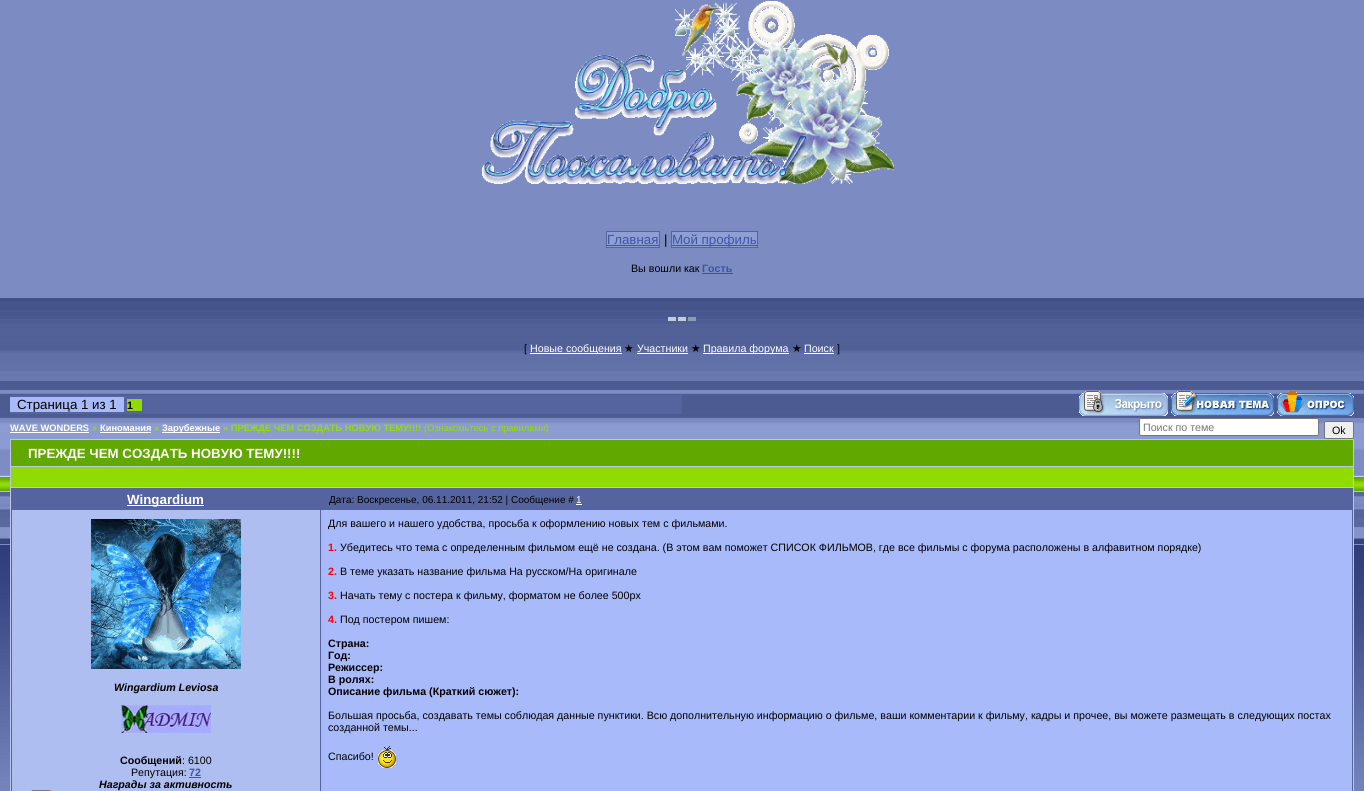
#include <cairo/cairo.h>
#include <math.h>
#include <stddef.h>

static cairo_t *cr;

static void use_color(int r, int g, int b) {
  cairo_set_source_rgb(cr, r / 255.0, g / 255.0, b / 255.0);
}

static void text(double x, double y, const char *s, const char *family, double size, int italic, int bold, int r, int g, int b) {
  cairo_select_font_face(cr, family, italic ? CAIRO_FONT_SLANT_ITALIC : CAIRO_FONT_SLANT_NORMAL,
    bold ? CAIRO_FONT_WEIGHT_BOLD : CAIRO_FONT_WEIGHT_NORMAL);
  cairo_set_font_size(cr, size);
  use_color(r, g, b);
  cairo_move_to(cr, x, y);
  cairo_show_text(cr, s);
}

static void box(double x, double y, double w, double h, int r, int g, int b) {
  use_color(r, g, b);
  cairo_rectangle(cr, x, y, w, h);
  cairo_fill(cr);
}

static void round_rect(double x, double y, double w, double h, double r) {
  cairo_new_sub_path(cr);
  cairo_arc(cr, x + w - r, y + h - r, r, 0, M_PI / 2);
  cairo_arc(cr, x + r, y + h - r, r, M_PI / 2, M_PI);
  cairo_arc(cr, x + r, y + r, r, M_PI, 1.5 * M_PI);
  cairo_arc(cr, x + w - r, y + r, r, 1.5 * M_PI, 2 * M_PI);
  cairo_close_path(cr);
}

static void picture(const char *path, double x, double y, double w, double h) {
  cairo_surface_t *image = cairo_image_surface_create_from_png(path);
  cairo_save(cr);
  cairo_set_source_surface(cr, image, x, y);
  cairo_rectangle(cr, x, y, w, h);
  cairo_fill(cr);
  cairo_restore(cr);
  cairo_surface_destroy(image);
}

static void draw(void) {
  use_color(124, 140, 195);
  cairo_paint(cr);
  picture("img_01.png", 482, 1, 412, 183);
  use_color(143, 159, 212);
  cairo_rectangle(cr, 606.5, 231.5, 53, 16);
  cairo_fill_preserve(cr);
  use_color(85, 100, 158);
  cairo_set_line_width(cr, 1);
  cairo_stroke(cr);
  box(607, 245, 52, 1, 63, 83, 164);
  use_color(143, 159, 212);
  cairo_rectangle(cr, 671.5, 231.5, 86, 16);
  cairo_fill_preserve(cr);
  use_color(85, 100, 158);
  cairo_stroke(cr);
  box(672, 245, 85, 1, 63, 83, 164);
  box(702, 273, 31, 1, 63, 83, 164);
  picture("img_02.png", 0, 298, 1364, 493);
  picture("img_03.png", 668, 317, 28, 4);
  box(530, 353, 92, 1, 255, 255, 255);
  box(637, 353, 51, 1, 255, 255, 255);
  box(703, 353, 86, 1, 255, 255, 255);
  box(804, 353, 30, 1, 255, 255, 255);
  box(10, 395, 672, 19, 85, 100, 158);
  box(10, 397, 114, 15, 168, 186, 249);
  box(127, 399, 15, 12, 145, 220, 0);
  picture("img_04.png", 1079, 391, 89, 25);
  picture("img_05.png", 1171, 391, 103, 25);
  picture("img_06.png", 1277, 391, 77, 25);
  box(10, 432, 79, 1, 255, 255, 255);
  box(100, 432, 51, 1, 255, 255, 255);
  box(162, 432, 58, 1, 255, 255, 255);
  round_rect(1139.5, 418.5, 179, 17, 1.5);
  cairo_fill_preserve(cr);
  use_color(118, 118, 118);
  cairo_stroke(cr);
  use_color(239, 239, 239);
  round_rect(1324.5, 421.5, 29, 17, 1.5);
  cairo_fill_preserve(cr);
  use_color(118, 118, 118);
  cairo_stroke(cr);
  box(10, 439, 1344, 352, 188, 198, 231);
  box(11, 440, 1342, 26, 97, 168, 0);
  box(11, 467, 1342, 20, 145, 220, 0);
  box(11, 488, 1342, 303, 85, 100, 158);
  box(127, 505, 77, 1, 255, 255, 255);
  box(576, 504, 6, 1, 255, 255, 255);
  box(12, 510, 308, 281, 175, 190, 241);
  picture("img_07.png", 91, 519, 150, 150);
  picture("img_08.png", 121, 705, 90, 28);
  box(189, 777, 12, 1, 63, 83, 164);
  picture("img_09.png", 31, 790, 20, 1);
  box(321, 510, 1031, 281, 168, 186, 249);
  picture("img_10.png", 378, 746, 18, 22);
  text(607, 244, "Главная", "Liberation Sans", 13.3, 0, 0, 63, 83, 164);
  text(664, 244, "|", "Liberation Sans", 13.3, 0, 0, 0, 0, 0);
  text(672, 244, "Мой профиль", "Liberation Sans", 13.3, 0, 0, 63, 83, 164);
  text(631, 272, "Вы вошли как", "Liberation Sans", 10.67, 0, 0, 0, 0, 0);
  text(702, 272, "Гость", "Liberation Sans", 10.67, 0, 1, 63, 83, 164);
  text(524, 352, "[", "Liberation Sans", 10.67, 0, 0, 0, 0, 0);
  text(530, 352, "Новые сообщения", "Liberation Sans", 10.67, 0, 0, 255, 255, 255);
  text(624, 352, "★", "DejaVu Sans", 10.67, 0, 0, 0, 0, 0);
  text(637, 352, "Участники", "Liberation Sans", 10.67, 0, 0, 255, 255, 255);
  text(691, 352, "★", "DejaVu Sans", 10.67, 0, 0, 0, 0, 0);
  text(703, 352, "Правила форума", "Liberation Sans", 10.67, 0, 0, 255, 255, 255);
  text(792, 352, "★", "DejaVu Sans", 10.67, 0, 0, 0, 0, 0);
  text(804, 352, "Поиск", "Liberation Sans", 10.67, 0, 0, 255, 255, 255);
  text(837, 352, "]", "Liberation Sans", 10.67, 0, 0, 0, 0, 0);
  text(17, 409, "Страница 1 из 1", "Liberation Sans", 13.3, 0, 0, 0, 0, 0);
  text(127, 409, "1", "Liberation Sans", 10.67, 0, 1, 0, 0, 0);
  text(10, 431, "WAVE WONDERS", "Liberation Sans", 9.3, 0, 1, 255, 255, 255);
  text(92, 431, "»", "Liberation Sans", 9.3, 0, 1, 147, 222, 0);
  text(100, 431, "Киномания", "Liberation Sans", 9.3, 0, 1, 255, 255, 255);
  text(154, 431, "»", "Liberation Sans", 9.3, 0, 1, 147, 222, 0);
  text(162, 431, "Зарубежные", "Liberation Sans", 9.3, 0, 1, 255, 255, 255);
  text(223, 431, "» ПРЕЖДЕ ЧЕМ СОЗДАТЬ НОВУЮ ТЕМУ!!!!", "Liberation Sans", 9.3, 0, 1, 147, 222, 0);
  text(424, 431, "(Ознакомьтесь с правилами)", "Liberation Sans", 9.3, 0, 0, 147, 222, 0);
  text(1143, 431, "Поиск по теме", "Liberation Sans", 10.67, 0, 0, 117, 117, 117);
  text(1332, 434, "Ok", "Liberation Sans", 10.67, 0, 0, 0, 0, 0);
  text(28, 458, "ПРЕЖДЕ ЧЕМ СОЗДАТЬ НОВУЮ ТЕМУ!!!!", "Liberation Sans", 13.3, 0, 1, 255, 255, 255);
  text(127, 504, "Wingardium", "Liberation Sans", 13.3, 0, 1, 255, 255, 255);
  text(329, 503, "Дата: Воскресенье, 06.11.2011, 21:52 | Сообщение #", "Liberation Sans", 10, 0, 0, 0, 0, 0);
  text(576, 503, "1", "Liberation Sans", 10, 0, 0, 255, 255, 255);
  text(114, 691, "Wingardium Leviosa", "Liberation Sans", 10.67, 1, 1, 0, 0, 0);
  text(120, 764, "Сообщений", "Liberation Sans", 10.67, 0, 1, 0, 0, 0);
  text(182, 764, ": 6100", "Liberation Sans", 10.67, 0, 0, 0, 0, 0);
  text(131, 776, "Репутация:", "Liberation Sans", 10.67, 0, 0, 0, 0, 0);
  text(189, 776, "72", "Liberation Sans", 10.67, 0, 1, 63, 83, 164);
  text(99, 788, "Награды за активность", "Liberation Sans", 10.67, 1, 1, 0, 0, 0);
  text(328, 527, "Для вашего и нашего удобства, просьба к оформлению новых тем с фильмами.", "Liberation Sans", 10.67, 0, 0, 0, 0, 0);
  text(328, 551, "1.", "Liberation Sans", 10.67, 0, 1, 255, 0, 0);
  text(340, 551, "Убедитесь что тема с определенным фильмом ещё не создана. (В этом вам поможет СПИСОК ФИЛЬМОВ, где все фильмы с форума расположены в алфавитном порядке)", "Liberation Sans", 10.67, 0, 0, 0, 0, 0);
  text(328, 575, "2.", "Liberation Sans", 10.67, 0, 1, 255, 0, 0);
  text(340, 575, "В теме указать название фильма На русском/На оригинале", "Liberation Sans", 10.67, 0, 0, 0, 0, 0);
  text(328, 599, "3.", "Liberation Sans", 10.67, 0, 1, 255, 0, 0);
  text(340, 599, "Начать тему с постера к фильму, форматом не более 500px", "Liberation Sans", 10.67, 0, 0, 0, 0, 0);
  text(328, 623, "4.", "Liberation Sans", 10.67, 0, 1, 255, 0, 0);
  text(340, 623, "Под постером пишем:", "Liberation Sans", 10.67, 0, 0, 0, 0, 0);
  text(328, 647, "Страна:", "Liberation Sans", 10.67, 0, 1, 0, 0, 0);
  text(328, 659, "Год:", "Liberation Sans", 10.67, 0, 1, 0, 0, 0);
  text(328, 671, "Режиссер:", "Liberation Sans", 10.67, 0, 1, 0, 0, 0);
  text(328, 683, "В ролях:", "Liberation Sans", 10.67, 0, 1, 0, 0, 0);
  text(328, 695, "Описание фильма (Краткий сюжет):", "Liberation Sans", 10.67, 0, 1, 0, 0, 0);
  text(328, 719, "Большая просьба, создавать темы соблюдая данные пунктики. Всю дополнительную информацию о фильме, ваши комментарии к фильму, кадры и прочее, вы можете размещать в следующих постах", "Liberation Sans", 10.67, 0, 0, 0, 0, 0);
  text(328, 731, "созданной темы...", "Liberation Sans", 10.67, 0, 0, 0, 0, 0);
  text(328, 760, "Спасибо!", "Liberation Sans", 10.67, 0, 0, 0, 0, 0);
}

int main(void) {
  cairo_surface_t *surface = cairo_image_surface_create(CAIRO_FORMAT_RGB24, 1364, 791);
  cr = cairo_create(surface);
  cairo_font_options_t *options = cairo_font_options_create();
  cairo_font_options_set_hint_metrics(options, CAIRO_HINT_METRICS_OFF);
  cairo_font_options_set_hint_style(options, CAIRO_HINT_STYLE_NONE);
  cairo_set_font_options(cr, options);
  cairo_set_miter_limit(cr, 4);
  draw();
  cairo_surface_write_to_png(surface, "out.png");
  cairo_font_options_destroy(options);
  cairo_destroy(cr);
  cairo_surface_destroy(surface);
  return 0;
}
